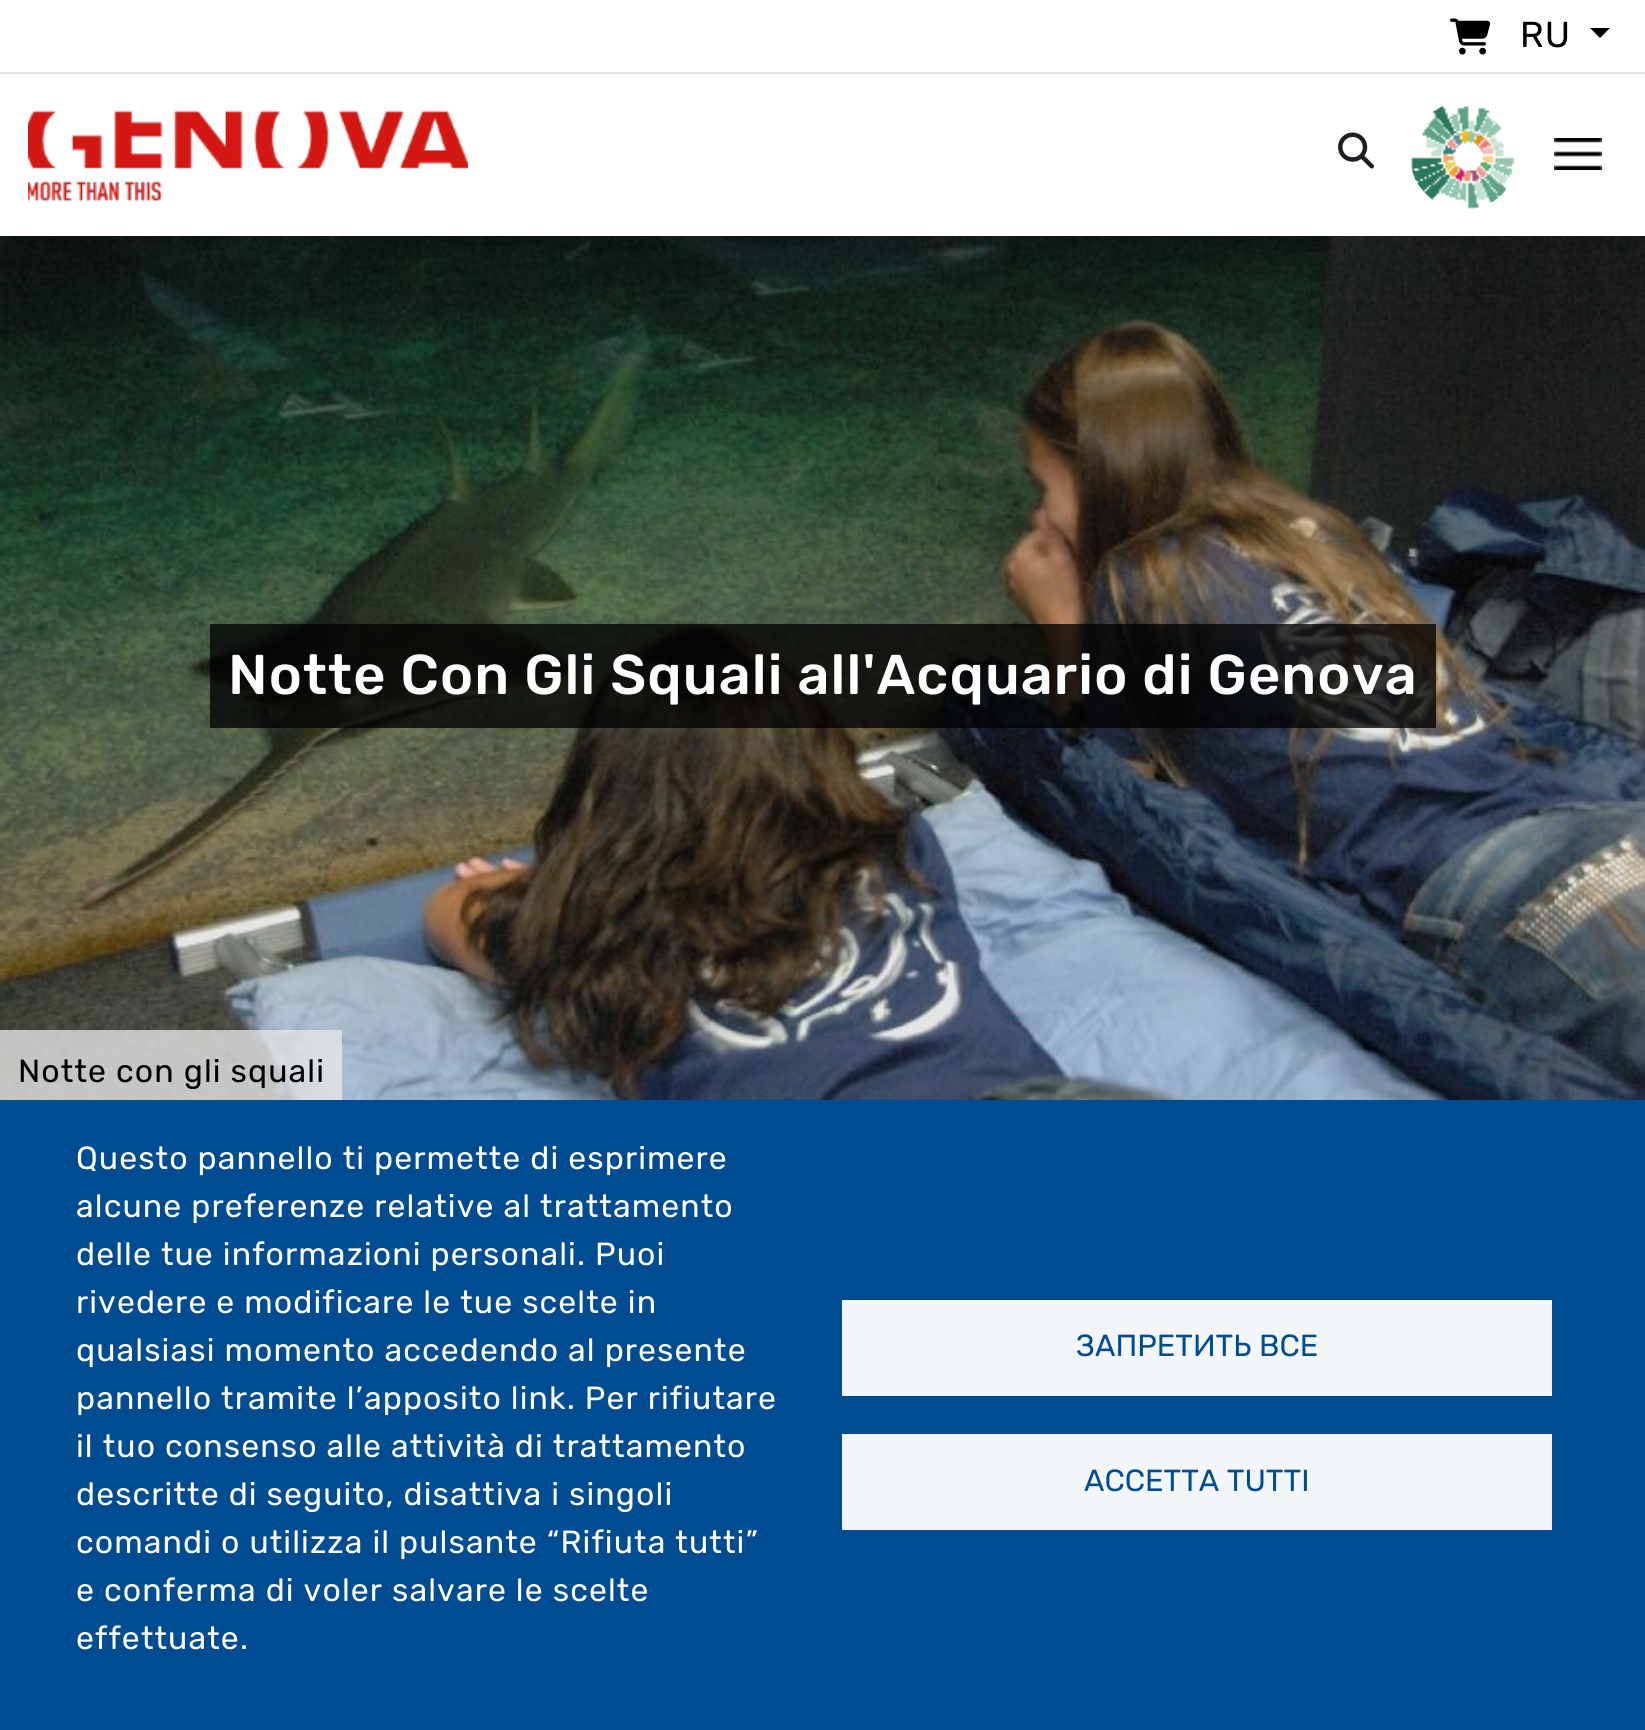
#include <cairo/cairo.h>
#include <math.h>
#include <stddef.h>

static cairo_t *cr;

static void use_color(int r, int g, int b) {
  cairo_set_source_rgb(cr, r / 255.0, g / 255.0, b / 255.0);
}

static void text(double x, double y, const char *s, const char *family, double size, int italic, int bold, int r, int g, int b) {
  cairo_select_font_face(cr, family, italic ? CAIRO_FONT_SLANT_ITALIC : CAIRO_FONT_SLANT_NORMAL,
    bold ? CAIRO_FONT_WEIGHT_BOLD : CAIRO_FONT_WEIGHT_NORMAL);
  cairo_set_font_size(cr, size);
  use_color(r, g, b);
  cairo_move_to(cr, x, y);
  cairo_show_text(cr, s);
}

static void spaced_text(double x, double y, const char *s, double letter, double word) {
  cairo_move_to(cr, x, y);
  while (*s) {
    char ch[5] = {0};
    int n = 0;
    do ch[n++] = *s++; while ((*s & 0xC0) == 0x80);
    cairo_show_text(cr, ch);
    cairo_rel_move_to(cr, letter + word * (*ch == ' '), 0);
  }
}

static void box(double x, double y, double w, double h, int r, int g, int b) {
  use_color(r, g, b);
  cairo_rectangle(cr, x, y, w, h);
  cairo_fill(cr);
}

static void picture(const char *path, double x, double y, double w, double h) {
  cairo_surface_t *image = cairo_image_surface_create_from_png(path);
  cairo_save(cr);
  cairo_set_source_surface(cr, image, x, y);
  cairo_rectangle(cr, x, y, w, h);
  cairo_fill(cr);
  cairo_restore(cr);
  cairo_surface_destroy(image);
}

static void draw(void) {
  use_color(255, 255, 255);
  cairo_paint(cr);
  box(0, 72, 1645, 2, 222, 226, 230);
  picture("img_01.png", 1450, 18, 41, 37);
  use_color(0, 0, 0);
  cairo_new_path(cr);
  cairo_move_to(cr, 1590, 28);
  cairo_line_to(cr, 1610, 28);
  cairo_line_to(cr, 1600, 38);
  cairo_close_path(cr);
  cairo_fill(cr);
  picture("img_02.png", 28, 110, 440, 92);
  picture("img_03.png", 1338, 132, 36, 37);
  picture("img_04.png", 1410, 105, 105, 104);
  picture("img_05.png", 1554, 138, 48, 32);
  picture("img_06.png", 0, 236, 1645, 864);
  cairo_set_source_rgba(cr, 0, 0, 0, 0.76);
  cairo_rectangle(cr, 210, 624, 1226, 104);
  cairo_fill(cr);
  cairo_set_source_rgba(cr, 0.902, 0.902, 0.902, 0.78);
  cairo_rectangle(cr, 0, 1030, 342, 70);
  cairo_fill(cr);
  box(0, 1100, 1645, 630, 0, 76, 147);
  box(842, 1300, 710, 96, 242, 246, 250);
  box(842, 1434, 710, 96, 242, 246, 250);
  cairo_select_font_face(cr, "Rubik", CAIRO_FONT_SLANT_NORMAL, CAIRO_FONT_WEIGHT_NORMAL);
  cairo_set_font_size(cr, 36);
  use_color(0, 0, 0);
  spaced_text(1520, 47, "RU", 1.1, 0);
  cairo_select_font_face(cr, "Rubik Medium", CAIRO_FONT_SLANT_NORMAL, CAIRO_FONT_WEIGHT_NORMAL);
  cairo_set_font_size(cr, 56);
  use_color(255, 255, 255);
  spaced_text(228, 694, "Notte Con Gli Squali all'Acquario di Genova", 1.1, 0);
  cairo_select_font_face(cr, "Rubik", CAIRO_FONT_SLANT_NORMAL, CAIRO_FONT_WEIGHT_NORMAL);
  cairo_set_font_size(cr, 32);
  use_color(0, 0, 0);
  spaced_text(18, 1082, "Notte con gli squali", 1.1, 0);
  use_color(255, 255, 255);
  spaced_text(76, 1169, "Questo pannello ti permette di esprimere", 1.1, 0);
  spaced_text(76, 1217, "alcune preferenze relative al trattamento", 1.1, 0);
  spaced_text(76, 1265, "delle tue informazioni personali. Puoi", 1.1, 0);
  spaced_text(76, 1313, "rivedere e modificare le tue scelte in", 1.1, 0);
  spaced_text(76, 1361, "qualsiasi momento accedendo al presente", 1.1, 0);
  spaced_text(76, 1409, "pannello tramite l’apposito link. Per rifiutare", 1.1, 0);
  spaced_text(76, 1457, "il tuo consenso alle attività di trattamento", 1.1, 0);
  spaced_text(76, 1505, "descritte di seguito, disattiva i singoli", 1.1, 0);
  spaced_text(76, 1553, "comandi o utilizza il pulsante “Rifiuta tutti”", 1.1, 0);
  spaced_text(76, 1601, "e conferma di voler salvare le scelte", 1.1, 0);
  spaced_text(76, 1649, "effettuate.", 1.1, 0);
  text(1076, 1356, "ЗАПРЕТИТЬ ВСЕ", "Rubik", 30.5, 0, 0, 0, 76, 147);
  text(1084, 1491, "ACCETTA TUTTI", "Rubik", 30.5, 0, 0, 0, 76, 147);
}

int main(void) {
  cairo_surface_t *surface = cairo_image_surface_create(CAIRO_FORMAT_RGB24, 1645, 1730);
  cr = cairo_create(surface);
  cairo_font_options_t *options = cairo_font_options_create();
  cairo_font_options_set_hint_metrics(options, CAIRO_HINT_METRICS_OFF);
  cairo_font_options_set_hint_style(options, CAIRO_HINT_STYLE_NONE);
  cairo_set_font_options(cr, options);
  cairo_set_miter_limit(cr, 4);
  draw();
  cairo_surface_write_to_png(surface, "out.png");
  cairo_font_options_destroy(options);
  cairo_destroy(cr);
  cairo_surface_destroy(surface);
  return 0;
}
